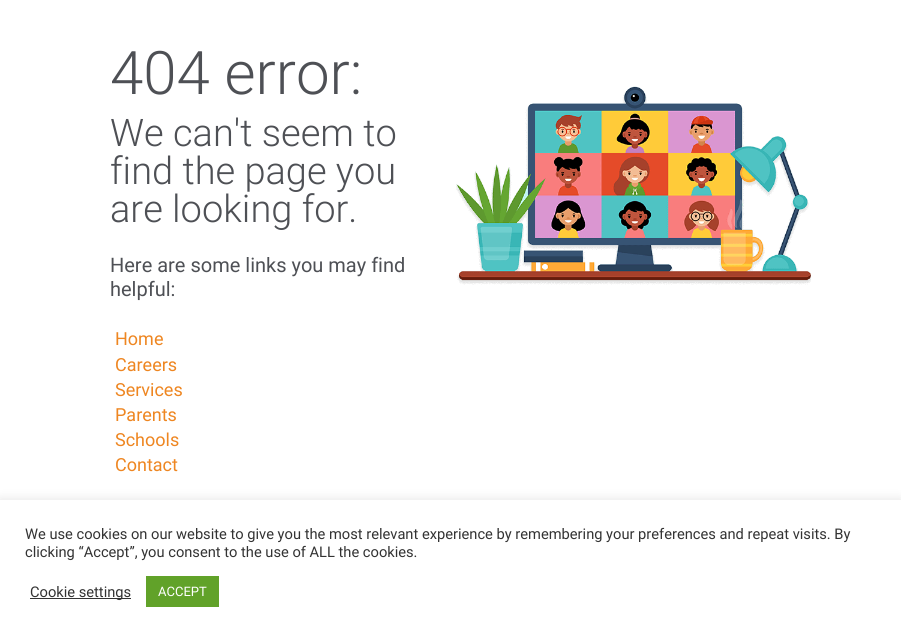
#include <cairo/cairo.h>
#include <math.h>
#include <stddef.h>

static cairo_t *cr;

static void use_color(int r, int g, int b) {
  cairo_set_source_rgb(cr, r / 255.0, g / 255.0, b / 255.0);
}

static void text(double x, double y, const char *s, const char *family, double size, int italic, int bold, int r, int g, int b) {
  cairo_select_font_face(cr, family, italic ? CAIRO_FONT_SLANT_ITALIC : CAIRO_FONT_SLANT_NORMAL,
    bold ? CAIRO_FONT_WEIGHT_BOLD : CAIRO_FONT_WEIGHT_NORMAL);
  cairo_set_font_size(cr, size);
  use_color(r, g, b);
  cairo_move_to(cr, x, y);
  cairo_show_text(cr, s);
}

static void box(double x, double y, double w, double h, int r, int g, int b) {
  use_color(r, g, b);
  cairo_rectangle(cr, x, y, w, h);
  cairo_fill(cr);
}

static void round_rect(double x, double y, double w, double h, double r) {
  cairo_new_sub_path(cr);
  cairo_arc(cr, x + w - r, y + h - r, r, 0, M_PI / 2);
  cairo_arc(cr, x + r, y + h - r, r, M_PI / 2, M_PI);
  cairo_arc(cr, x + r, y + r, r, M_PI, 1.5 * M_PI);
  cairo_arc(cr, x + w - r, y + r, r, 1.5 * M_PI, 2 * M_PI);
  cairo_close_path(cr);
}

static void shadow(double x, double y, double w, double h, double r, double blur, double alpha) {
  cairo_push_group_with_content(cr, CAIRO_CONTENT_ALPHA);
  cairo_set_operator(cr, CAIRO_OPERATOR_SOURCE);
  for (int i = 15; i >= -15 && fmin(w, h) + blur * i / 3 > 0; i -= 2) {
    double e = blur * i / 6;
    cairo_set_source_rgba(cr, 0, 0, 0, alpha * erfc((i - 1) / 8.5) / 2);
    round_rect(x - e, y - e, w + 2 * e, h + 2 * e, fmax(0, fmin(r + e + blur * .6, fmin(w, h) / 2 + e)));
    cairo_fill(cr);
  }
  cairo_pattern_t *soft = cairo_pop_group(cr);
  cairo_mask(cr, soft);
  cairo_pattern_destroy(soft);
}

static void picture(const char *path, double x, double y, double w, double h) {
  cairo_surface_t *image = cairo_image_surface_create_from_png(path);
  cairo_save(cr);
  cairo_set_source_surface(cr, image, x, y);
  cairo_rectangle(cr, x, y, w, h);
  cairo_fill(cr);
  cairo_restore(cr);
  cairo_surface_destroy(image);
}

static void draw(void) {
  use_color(255, 255, 255);
  cairo_paint(cr);
  picture("img_01.png", 456, 86, 355, 199);
  use_color(172, 171, 171);
  shadow(0, 499, 901, 137, 0, 5, 0.3);
  box(0, 500, 901, 137, 255, 255, 255);
  box(30, 598, 101, 1, 51, 51, 51);
  box(146, 576, 73, 31, 97, 162, 41);
  text(110, 94, "404 error:", "Roboto Light", 60, 0, 0, 78, 80, 85);
  text(110, 146, "We can't seem to", "Roboto Light", 38, 0, 0, 78, 80, 85);
  text(110, 184, "find the page you", "Roboto Light", 38, 0, 0, 78, 80, 85);
  text(110, 222, "are looking for.", "Roboto Light", 38, 0, 0, 78, 80, 85);
  text(110, 272, "Here are some links you may find", "Roboto", 20, 0, 0, 78, 80, 85);
  text(110, 296, "helpful:", "Roboto", 20, 0, 0, 78, 80, 85);
  text(115, 345, "Home", "Roboto", 18, 0, 0, 238, 134, 33);
  text(115, 371, "Careers", "Roboto", 18, 0, 0, 238, 134, 33);
  text(115, 396, "Services", "Roboto", 18, 0, 0, 238, 134, 33);
  text(115, 421, "Parents", "Roboto", 18, 0, 0, 238, 134, 33);
  text(115, 446, "Schools", "Roboto", 18, 0, 0, 238, 134, 33);
  text(115, 471, "Contact", "Roboto", 18, 0, 0, 238, 134, 33);
  text(25, 539, "We use cookies on our website to give you the most relevant experience by remembering your preferences and repeat visits. By", "Roboto", 14.67, 0, 0, 51, 51, 51);
  text(25, 557, "clicking “Accept”, you consent to the use of ALL the cookies.", "Roboto", 14.67, 0, 0, 51, 51, 51);
  text(30, 597, "Cookie settings", "Roboto", 14.67, 0, 0, 51, 51, 51);
  text(158, 596, "ACCEPT", "Roboto", 13, 0, 0, 255, 255, 255);
}

int main(void) {
  cairo_surface_t *surface = cairo_image_surface_create(CAIRO_FORMAT_RGB24, 901, 637);
  cr = cairo_create(surface);
  cairo_font_options_t *options = cairo_font_options_create();
  cairo_font_options_set_hint_metrics(options, CAIRO_HINT_METRICS_OFF);
  cairo_font_options_set_hint_style(options, CAIRO_HINT_STYLE_NONE);
  cairo_set_font_options(cr, options);
  cairo_set_miter_limit(cr, 4);
  draw();
  cairo_surface_write_to_png(surface, "out.png");
  cairo_font_options_destroy(options);
  cairo_destroy(cr);
  cairo_surface_destroy(surface);
  return 0;
}
